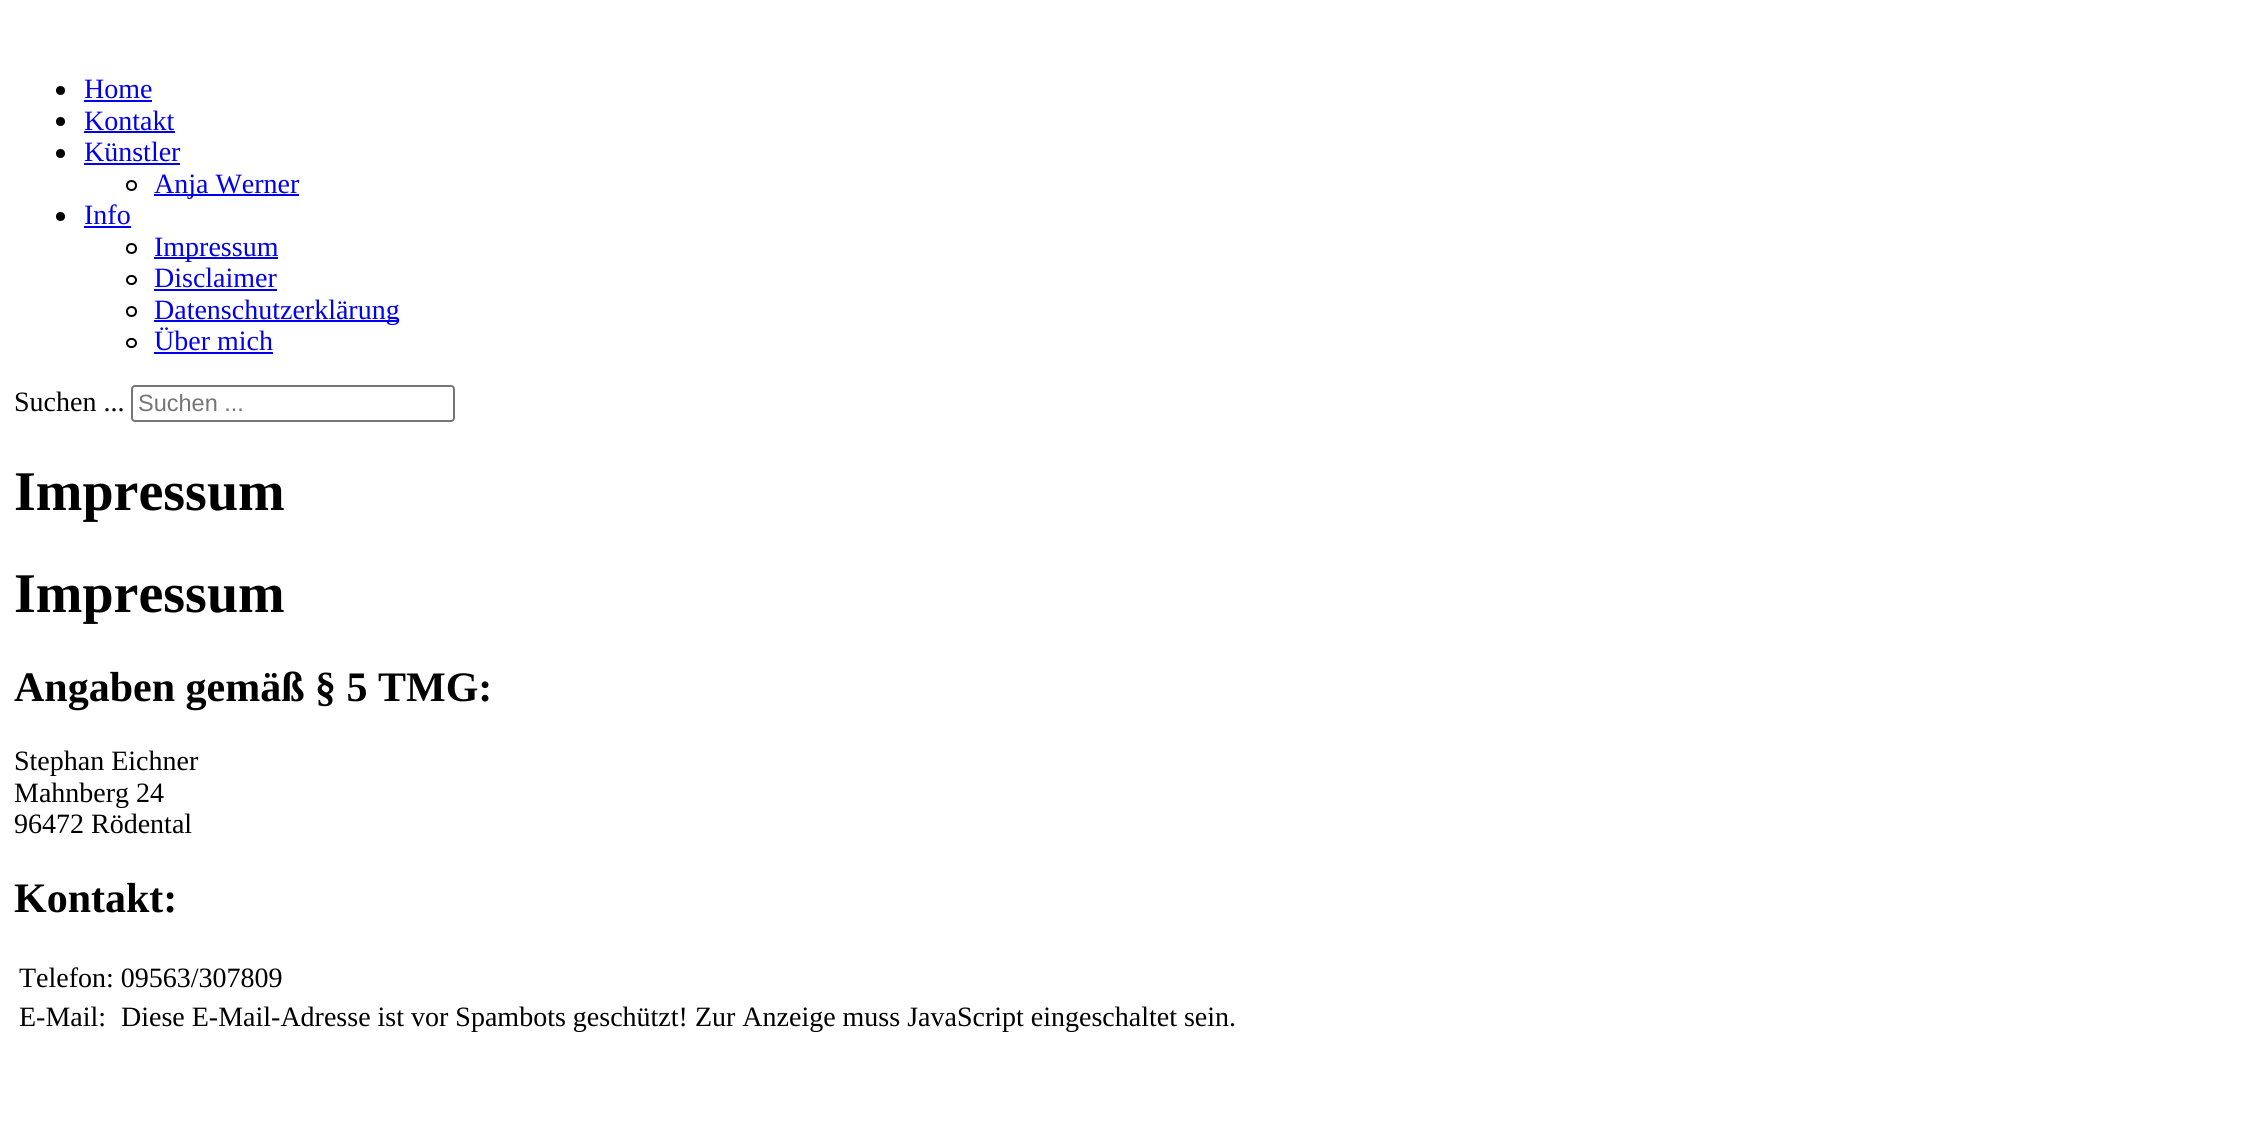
#include <cairo/cairo.h>
#include <math.h>
#include <stddef.h>

static cairo_t *cr;

static void use_color(int r, int g, int b) {
  cairo_set_source_rgb(cr, r / 255.0, g / 255.0, b / 255.0);
}

static void text(double x, double y, const char *s, const char *family, double size, int italic, int bold, int r, int g, int b) {
  cairo_select_font_face(cr, family, italic ? CAIRO_FONT_SLANT_ITALIC : CAIRO_FONT_SLANT_NORMAL,
    bold ? CAIRO_FONT_WEIGHT_BOLD : CAIRO_FONT_WEIGHT_NORMAL);
  cairo_set_font_size(cr, size);
  use_color(r, g, b);
  cairo_move_to(cr, x, y);
  cairo_show_text(cr, s);
}

static void box(double x, double y, double w, double h, int r, int g, int b) {
  use_color(r, g, b);
  cairo_rectangle(cr, x, y, w, h);
  cairo_fill(cr);
}

static void round_rect(double x, double y, double w, double h, double r) {
  cairo_new_sub_path(cr);
  cairo_arc(cr, x + w - r, y + h - r, r, 0, M_PI / 2);
  cairo_arc(cr, x + r, y + h - r, r, M_PI / 2, M_PI);
  cairo_arc(cr, x + r, y + r, r, M_PI, 1.5 * M_PI);
  cairo_arc(cr, x + w - r, y + r, r, 1.5 * M_PI, 2 * M_PI);
  cairo_close_path(cr);
}

static void draw(void) {
  use_color(255, 255, 255);
  cairo_paint(cr);
  use_color(0, 0, 0);
  cairo_arc(cr, 60.5, 90.5, 4.5, 0, 2 * M_PI);
  cairo_fill(cr);
  box(84, 100, 68, 2, 0, 0, 238);
  use_color(0, 0, 0);
  cairo_arc(cr, 60.5, 121.5, 4.5, 0, 2 * M_PI);
  cairo_fill(cr);
  box(84, 131, 91, 2, 0, 0, 238);
  use_color(0, 0, 0);
  cairo_arc(cr, 60.5, 153.5, 4.5, 0, 2 * M_PI);
  cairo_fill(cr);
  box(84, 163, 96, 2, 0, 0, 238);
  cairo_arc(cr, 131.5, 185.5, 4.5, 0, 2 * M_PI);
  use_color(0, 0, 0);
  cairo_stroke(cr);
  box(154, 194, 145, 2, 0, 0, 238);
  use_color(0, 0, 0);
  cairo_arc(cr, 60.5, 216.5, 4.5, 0, 2 * M_PI);
  cairo_fill(cr);
  box(84, 226, 47, 2, 0, 0, 238);
  cairo_arc(cr, 131.5, 248.5, 4.5, 0, 2 * M_PI);
  use_color(0, 0, 0);
  cairo_stroke(cr);
  box(154, 257, 124, 2, 0, 0, 238);
  round_rect(127, 276, 9, 8, 4);
  use_color(0, 0, 0);
  cairo_stroke(cr);
  box(154, 289, 123, 2, 0, 0, 238);
  cairo_arc(cr, 131.5, 311.5, 4.5, 0, 2 * M_PI);
  use_color(0, 0, 0);
  cairo_stroke(cr);
  box(154, 320, 245, 2, 0, 0, 238);
  round_rect(127, 339, 9, 8, 4);
  use_color(0, 0, 0);
  cairo_stroke(cr);
  box(154, 352, 119, 2, 0, 0, 238);
  round_rect(132, 386, 322, 35, 3);
  use_color(118, 118, 118);
  cairo_stroke(cr);
  text(84, 98, "Home", "Liberation Serif", 28, 0, 0, 0, 0, 238);
  text(84, 130, "Kontakt", "Liberation Serif", 28, 0, 0, 0, 0, 238);
  text(84, 161, "Künstler", "Liberation Serif", 28, 0, 0, 0, 0, 238);
  text(154, 193, "Anja Werner", "Liberation Serif", 28, 0, 0, 0, 0, 238);
  text(84, 224, "Info", "Liberation Serif", 28, 0, 0, 0, 0, 238);
  text(154, 256, "Impressum", "Liberation Serif", 28, 0, 0, 0, 0, 238);
  text(154, 287, "Disclaimer", "Liberation Serif", 28, 0, 0, 0, 0, 238);
  text(154, 319, "Datenschutzerklärung", "Liberation Serif", 28, 0, 0, 0, 0, 238);
  text(154, 350, "Über mich", "Liberation Serif", 28, 0, 0, 0, 0, 238);
  text(14, 411, "Suchen ...", "Liberation Serif", 28, 0, 0, 0, 0, 0);
  text(138, 411, "Suchen ...", "Liberation Sans", 23.5, 0, 0, 117, 117, 117);
  text(14, 510, "Impressum", "Liberation Serif", 56, 0, 1, 0, 0, 0);
  text(14, 612, "Impressum", "Liberation Serif", 56, 0, 1, 0, 0, 0);
  text(14, 701, "Angaben gemäß § 5 TMG:", "Liberation Serif", 42, 0, 1, 0, 0, 0);
  text(14, 770, "Stephan Eichner", "Liberation Serif", 28, 0, 0, 0, 0, 0);
  text(14, 802, "Mahnberg 24", "Liberation Serif", 28, 0, 0, 0, 0, 0);
  text(14, 833, "96472 Rödental", "Liberation Serif", 28, 0, 0, 0, 0, 0);
  text(14, 912, "Kontakt:", "Liberation Serif", 42, 0, 1, 0, 0, 0);
  text(19, 987, "Telefon: 09563/307809", "Liberation Serif", 28, 0, 0, 0, 0, 0);
  text(19, 1026, "E-Mail:", "Liberation Serif", 28, 0, 0, 0, 0, 0);
  text(121, 1026, "Diese E-Mail-Adresse ist vor Spambots geschützt! Zur Anzeige muss JavaScript eingeschaltet sein.", "Liberation Serif", 28, 0, 0, 0, 0, 0);
}

int main(void) {
  cairo_surface_t *surface = cairo_image_surface_create(CAIRO_FORMAT_RGB24, 2252, 1135);
  cr = cairo_create(surface);
  cairo_font_options_t *options = cairo_font_options_create();
  cairo_font_options_set_hint_metrics(options, CAIRO_HINT_METRICS_OFF);
  cairo_font_options_set_hint_style(options, CAIRO_HINT_STYLE_NONE);
  cairo_set_font_options(cr, options);
  cairo_set_miter_limit(cr, 4);
  draw();
  cairo_surface_write_to_png(surface, "out.png");
  cairo_font_options_destroy(options);
  cairo_destroy(cr);
  cairo_surface_destroy(surface);
  return 0;
}
